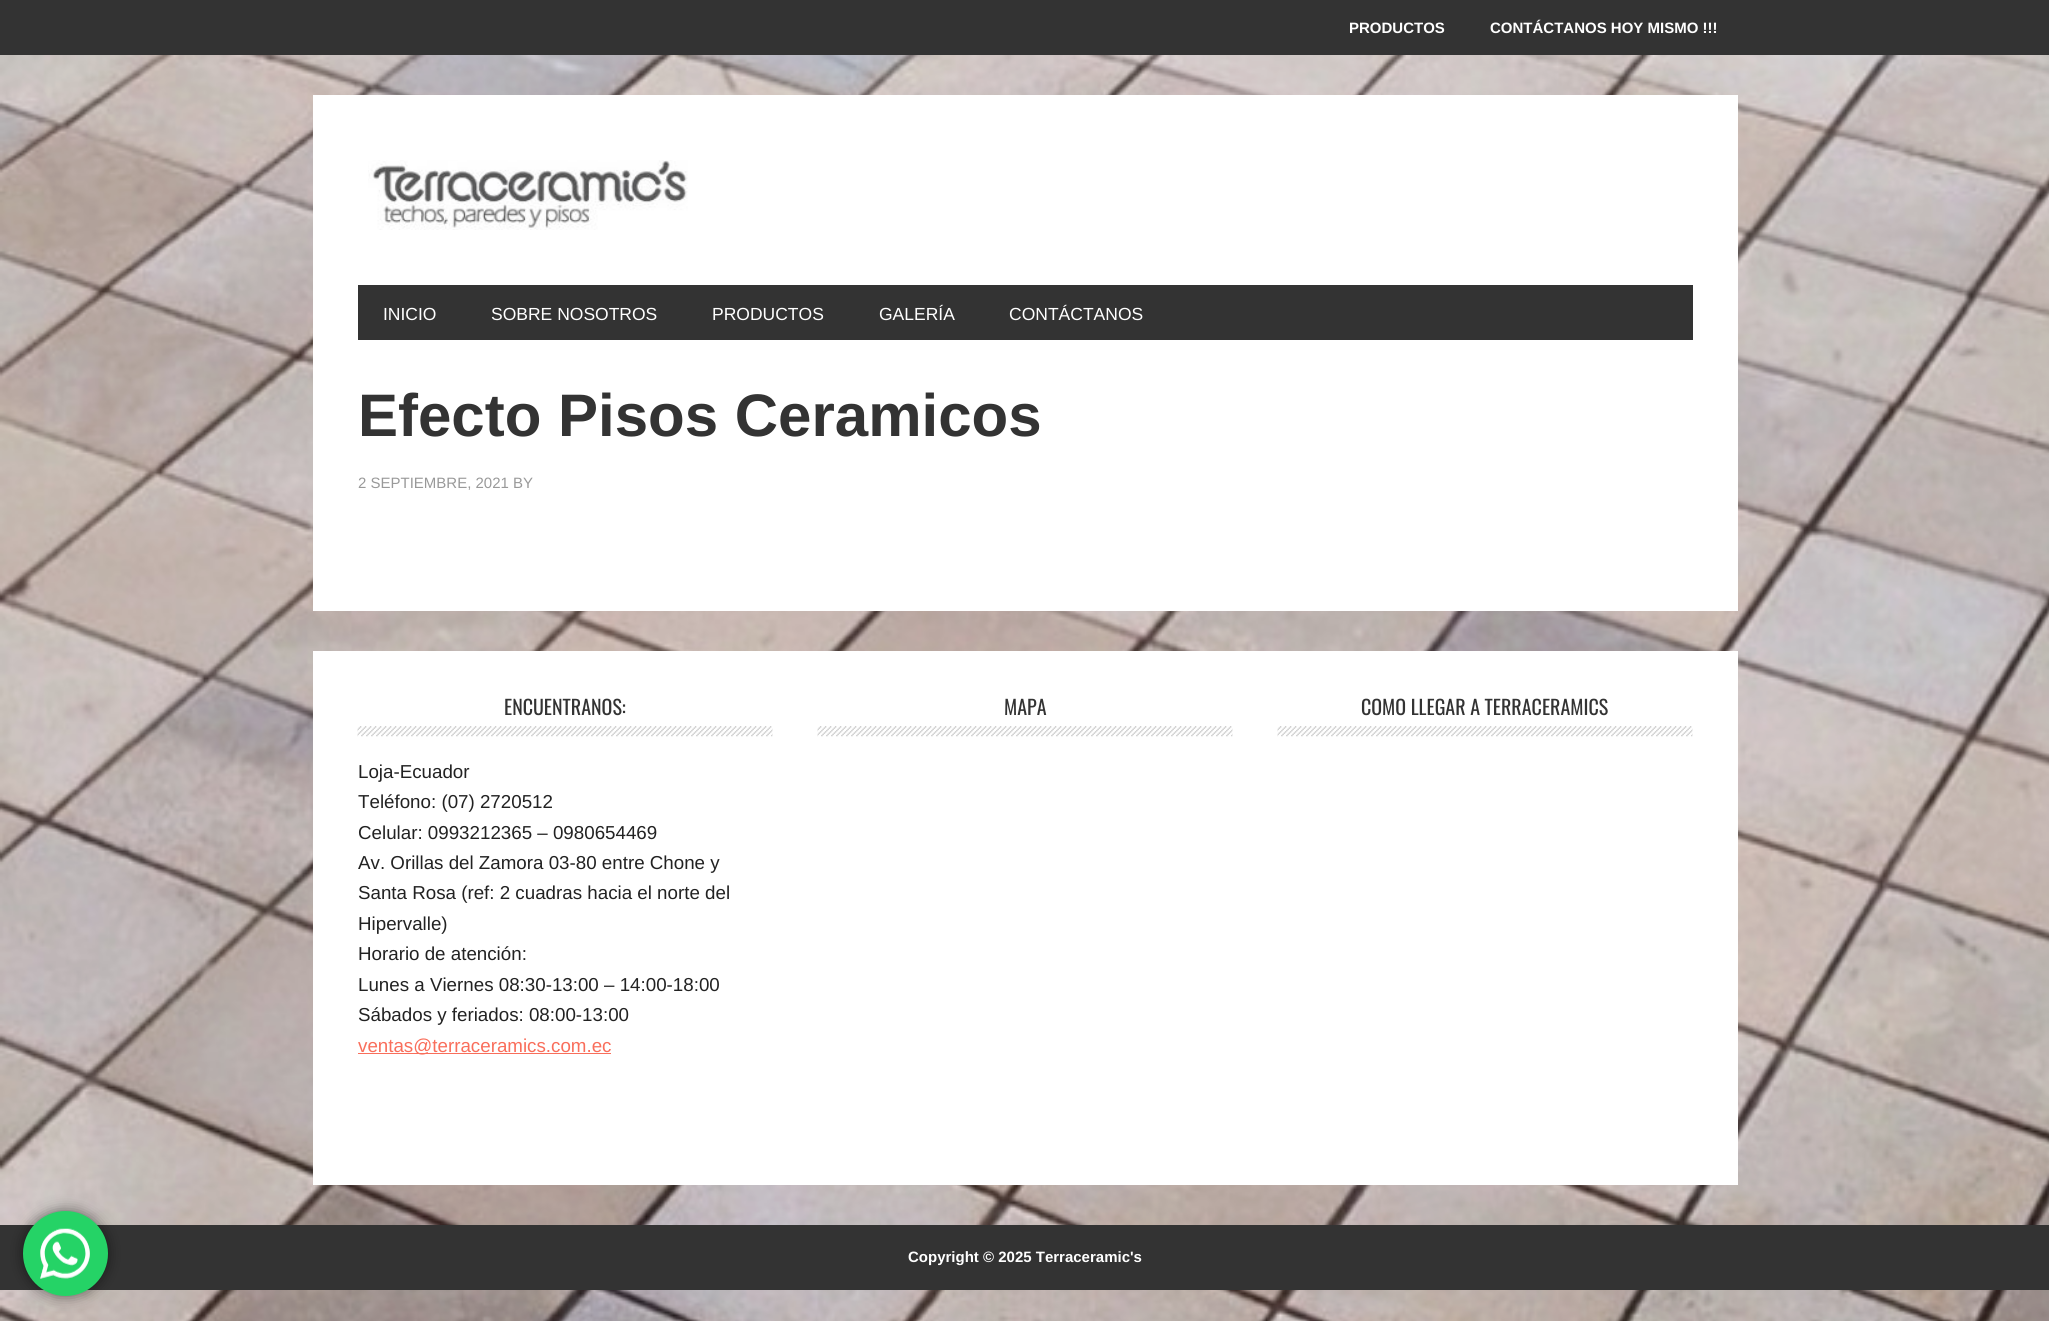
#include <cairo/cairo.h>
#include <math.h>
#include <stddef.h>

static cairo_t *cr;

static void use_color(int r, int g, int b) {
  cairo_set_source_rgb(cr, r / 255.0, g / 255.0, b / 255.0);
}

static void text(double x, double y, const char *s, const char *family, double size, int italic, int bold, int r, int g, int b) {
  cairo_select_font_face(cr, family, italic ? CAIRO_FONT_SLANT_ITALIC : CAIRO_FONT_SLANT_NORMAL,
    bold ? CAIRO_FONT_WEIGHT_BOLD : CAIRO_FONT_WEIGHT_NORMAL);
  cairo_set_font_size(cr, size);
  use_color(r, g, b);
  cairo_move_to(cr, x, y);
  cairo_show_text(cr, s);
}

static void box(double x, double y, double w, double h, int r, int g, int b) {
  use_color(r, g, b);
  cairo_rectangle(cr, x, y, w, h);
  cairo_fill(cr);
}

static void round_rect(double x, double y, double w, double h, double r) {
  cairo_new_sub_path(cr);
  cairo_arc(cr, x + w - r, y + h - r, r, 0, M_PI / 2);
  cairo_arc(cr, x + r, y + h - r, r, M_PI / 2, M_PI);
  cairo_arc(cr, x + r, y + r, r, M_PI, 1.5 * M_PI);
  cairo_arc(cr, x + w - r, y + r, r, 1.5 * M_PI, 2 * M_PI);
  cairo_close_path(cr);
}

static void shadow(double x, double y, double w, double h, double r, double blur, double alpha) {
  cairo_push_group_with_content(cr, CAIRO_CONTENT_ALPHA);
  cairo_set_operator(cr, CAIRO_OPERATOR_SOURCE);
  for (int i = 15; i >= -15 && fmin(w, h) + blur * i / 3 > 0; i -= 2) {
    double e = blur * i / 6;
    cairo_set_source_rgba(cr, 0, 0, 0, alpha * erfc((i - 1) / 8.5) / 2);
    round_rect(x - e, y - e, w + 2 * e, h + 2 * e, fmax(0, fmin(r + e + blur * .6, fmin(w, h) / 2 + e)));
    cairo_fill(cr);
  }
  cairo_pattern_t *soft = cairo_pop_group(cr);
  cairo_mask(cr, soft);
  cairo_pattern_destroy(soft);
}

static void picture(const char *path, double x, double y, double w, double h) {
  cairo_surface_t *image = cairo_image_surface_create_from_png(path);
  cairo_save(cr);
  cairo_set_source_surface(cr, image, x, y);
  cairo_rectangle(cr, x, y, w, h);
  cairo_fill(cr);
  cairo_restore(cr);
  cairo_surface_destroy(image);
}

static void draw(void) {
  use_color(255, 255, 255);
  cairo_paint(cr);
  box(0, 0, 2049, 55, 51, 51, 51);
  picture("img_01.png", 0, 55, 2049, 1266);
  box(313, 95, 1425, 516, 255, 255, 255);
  picture("img_02.png", 368, 160, 320, 70);
  box(358, 285, 1335, 55, 51, 51, 51);
  box(313, 651, 1425, 534, 255, 255, 255);
  picture("img_03.png", 357, 726, 416, 11);
  box(358, 1053, 253, 1, 249, 110, 91);
  picture("img_04.png", 817, 726, 416, 11);
  picture("img_05.png", 1277, 726, 416, 11);
  box(0, 1225, 2049, 65, 51, 51, 51);
  use_color(0, 0, 0);
  shadow(23, 1211, 85, 85, 42.5, 7, 0.5);
  use_color(37, 211, 102);
  cairo_arc(cr, 65.5, 1253.5, 42.5, 0, 2 * M_PI);
  cairo_fill(cr);
  picture("img_06.png", 40, 1228, 50, 51);
  text(1349, 33, "PRODUCTOS", "Liberation Sans", 15, 0, 1, 255, 255, 255);
  text(1490, 33, "CONTÁCTANOS HOY MISMO !!!", "Liberation Sans", 15, 0, 1, 255, 255, 255);
  text(383, 320, "INICIO", "Liberation Sans", 17.5, 0, 0, 255, 255, 255);
  text(491, 320, "SOBRE NOSOTROS", "Liberation Sans", 17.5, 0, 0, 255, 255, 255);
  text(712, 320, "PRODUCTOS", "Liberation Sans", 17.5, 0, 0, 255, 255, 255);
  text(879, 320, "GALERÍA", "Liberation Sans", 17.5, 0, 0, 255, 255, 255);
  text(1009, 320, "CONTÁCTANOS", "Liberation Sans", 17.5, 0, 0, 255, 255, 255);
  text(358, 436, "Efecto Pisos Ceramicos", "Liberation Sans", 60, 0, 1, 51, 51, 51);
  text(358, 488, "2 SEPTIEMBRE, 2021 BY", "Liberation Sans", 15, 0, 0, 153, 153, 153);
  text(504, 715, "ENCUENTRANOS:", "Oswald", 20, 0, 0, 51, 51, 51);
  text(358, 778, "Loja-Ecuador", "Liberation Sans", 18.75, 0, 0, 34, 34, 34);
  text(358, 808, "Teléfono: (07) 2720512", "Liberation Sans", 18.75, 0, 0, 34, 34, 34);
  text(358, 839, "Celular: 0993212365 – 0980654469", "Liberation Sans", 18.75, 0, 0, 34, 34, 34);
  text(358, 869, "Av. Orillas del Zamora 03-80 entre Chone y", "Liberation Sans", 18.75, 0, 0, 34, 34, 34);
  text(358, 899, "Santa Rosa (ref: 2 cuadras hacia el norte del", "Liberation Sans", 18.75, 0, 0, 34, 34, 34);
  text(358, 930, "Hipervalle)", "Liberation Sans", 18.75, 0, 0, 34, 34, 34);
  text(358, 960, "Horario de atención:", "Liberation Sans", 18.75, 0, 0, 34, 34, 34);
  text(358, 991, "Lunes a Viernes 08:30-13:00 – 14:00-18:00", "Liberation Sans", 18.75, 0, 0, 34, 34, 34);
  text(358, 1021, "Sábados y feriados: 08:00-13:00", "Liberation Sans", 18.75, 0, 0, 34, 34, 34);
  text(358, 1052, "ventas@terraceramics.com.ec", "Liberation Sans", 18.75, 0, 0, 249, 110, 91);
  text(1004, 715, "MAPA", "Oswald", 20, 0, 0, 51, 51, 51);
  text(1361, 715, "COMO LLEGAR A TERRACERAMICS", "Oswald", 20, 0, 0, 51, 51, 51);
  text(908, 1262, "Copyright © 2025 Terraceramic's", "Liberation Sans", 15, 0, 1, 255, 255, 255);
}

int main(void) {
  cairo_surface_t *surface = cairo_image_surface_create(CAIRO_FORMAT_RGB24, 2049, 1321);
  cr = cairo_create(surface);
  cairo_font_options_t *options = cairo_font_options_create();
  cairo_font_options_set_hint_metrics(options, CAIRO_HINT_METRICS_OFF);
  cairo_font_options_set_hint_style(options, CAIRO_HINT_STYLE_NONE);
  cairo_set_font_options(cr, options);
  cairo_set_miter_limit(cr, 4);
  draw();
  cairo_surface_write_to_png(surface, "out.png");
  cairo_font_options_destroy(options);
  cairo_destroy(cr);
  cairo_surface_destroy(surface);
  return 0;
}
